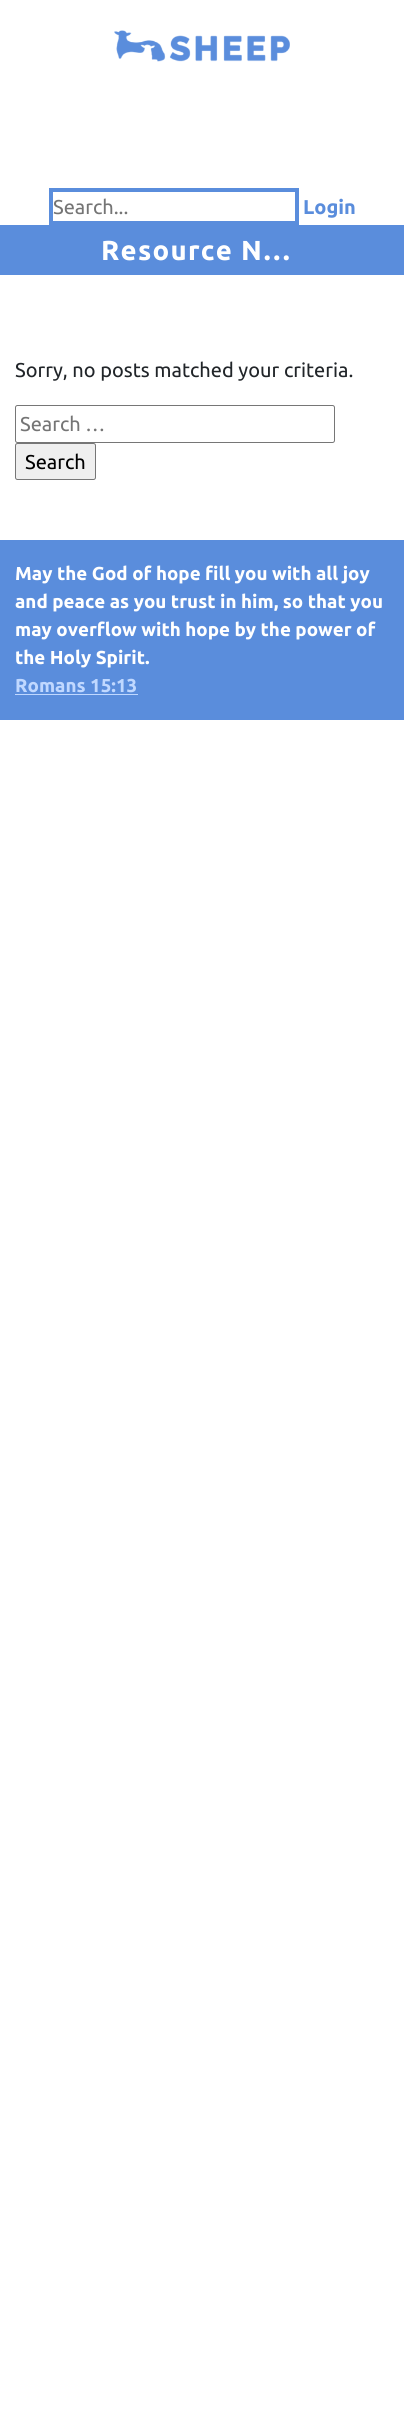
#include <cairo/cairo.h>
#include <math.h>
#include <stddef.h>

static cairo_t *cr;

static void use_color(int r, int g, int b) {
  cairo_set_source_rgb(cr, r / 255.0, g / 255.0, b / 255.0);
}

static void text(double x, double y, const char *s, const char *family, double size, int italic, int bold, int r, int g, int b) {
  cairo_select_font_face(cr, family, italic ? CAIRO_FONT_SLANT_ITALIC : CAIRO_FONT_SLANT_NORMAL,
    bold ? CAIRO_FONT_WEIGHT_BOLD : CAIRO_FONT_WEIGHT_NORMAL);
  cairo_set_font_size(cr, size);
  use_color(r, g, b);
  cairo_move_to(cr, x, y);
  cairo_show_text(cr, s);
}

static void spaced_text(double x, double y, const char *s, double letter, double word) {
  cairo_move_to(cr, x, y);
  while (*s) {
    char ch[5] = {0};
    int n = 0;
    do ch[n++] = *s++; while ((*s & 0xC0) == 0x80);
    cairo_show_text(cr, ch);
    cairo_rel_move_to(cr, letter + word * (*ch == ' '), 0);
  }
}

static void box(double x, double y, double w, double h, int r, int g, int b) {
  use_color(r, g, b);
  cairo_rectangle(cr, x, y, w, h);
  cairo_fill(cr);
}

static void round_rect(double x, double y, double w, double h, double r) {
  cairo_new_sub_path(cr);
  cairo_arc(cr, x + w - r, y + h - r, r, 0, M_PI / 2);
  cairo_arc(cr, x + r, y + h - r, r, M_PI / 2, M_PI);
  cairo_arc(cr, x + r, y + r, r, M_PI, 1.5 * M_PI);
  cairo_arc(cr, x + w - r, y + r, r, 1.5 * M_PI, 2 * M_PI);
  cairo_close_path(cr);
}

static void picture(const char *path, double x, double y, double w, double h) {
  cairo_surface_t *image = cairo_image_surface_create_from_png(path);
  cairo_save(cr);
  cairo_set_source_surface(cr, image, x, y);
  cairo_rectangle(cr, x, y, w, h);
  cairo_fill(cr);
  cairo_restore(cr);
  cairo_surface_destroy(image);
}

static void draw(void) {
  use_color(255, 255, 255);
  cairo_paint(cr);
  picture("img_01.png", 114, 30, 176, 32);
  cairo_rectangle(cr, 51, 190, 246, 33);
  use_color(90, 141, 220);
  cairo_set_line_width(cr, 4);
  cairo_stroke(cr);
  box(0, 225, 404, 50, 90, 141, 220);
  round_rect(15.5, 405.5, 319, 37, 2);
  use_color(118, 118, 118);
  cairo_set_line_width(cr, 1);
  cairo_stroke(cr);
  use_color(239, 239, 239);
  round_rect(15.5, 443.5, 80, 36, 2);
  cairo_fill_preserve(cr);
  use_color(118, 118, 118);
  cairo_stroke(cr);
  box(0, 540, 404, 180, 90, 141, 220);
  box(15, 694, 123, 1, 192, 216, 255);
  text(53, 214, "Search...", "Ubuntu", 20, 0, 0, 117, 117, 117);
  text(303, 214, "Login", "Ubuntu", 20, 0, 1, 90, 141, 220);
  cairo_set_font_size(cr, 27.5);
  use_color(255, 255, 255);
  spaced_text(101, 260, "Resource N…", 1.25, 0);
  text(15, 377, "Sorry, no posts matched your criteria.", "Ubuntu", 20, 0, 0, 33, 37, 41);
  text(20, 431, "Search …", "Ubuntu", 20, 0, 0, 117, 117, 117);
  text(25, 469, "Search", "Ubuntu", 20, 0, 0, 0, 0, 0);
  text(15, 580, "May the God of hope fill you with all joy", "Ubuntu", 18.75, 0, 1, 255, 255, 255);
  text(15, 608, "and peace as you trust in him, so that you", "Ubuntu", 18.75, 0, 1, 255, 255, 255);
  text(15, 636, "may overflow with hope by the power of", "Ubuntu", 18.75, 0, 1, 255, 255, 255);
  text(15, 664, "the Holy Spirit.", "Ubuntu", 18.75, 0, 1, 255, 255, 255);
  text(15, 692, "Romans 15:13", "Ubuntu", 18.75, 0, 1, 192, 216, 255);
}

int main(void) {
  cairo_surface_t *surface = cairo_image_surface_create(CAIRO_FORMAT_RGB24, 404, 2425);
  cr = cairo_create(surface);
  cairo_font_options_t *options = cairo_font_options_create();
  cairo_font_options_set_hint_metrics(options, CAIRO_HINT_METRICS_OFF);
  cairo_font_options_set_hint_style(options, CAIRO_HINT_STYLE_NONE);
  cairo_set_font_options(cr, options);
  cairo_set_miter_limit(cr, 4);
  draw();
  cairo_surface_write_to_png(surface, "out.png");
  cairo_font_options_destroy(options);
  cairo_destroy(cr);
  cairo_surface_destroy(surface);
  return 0;
}
